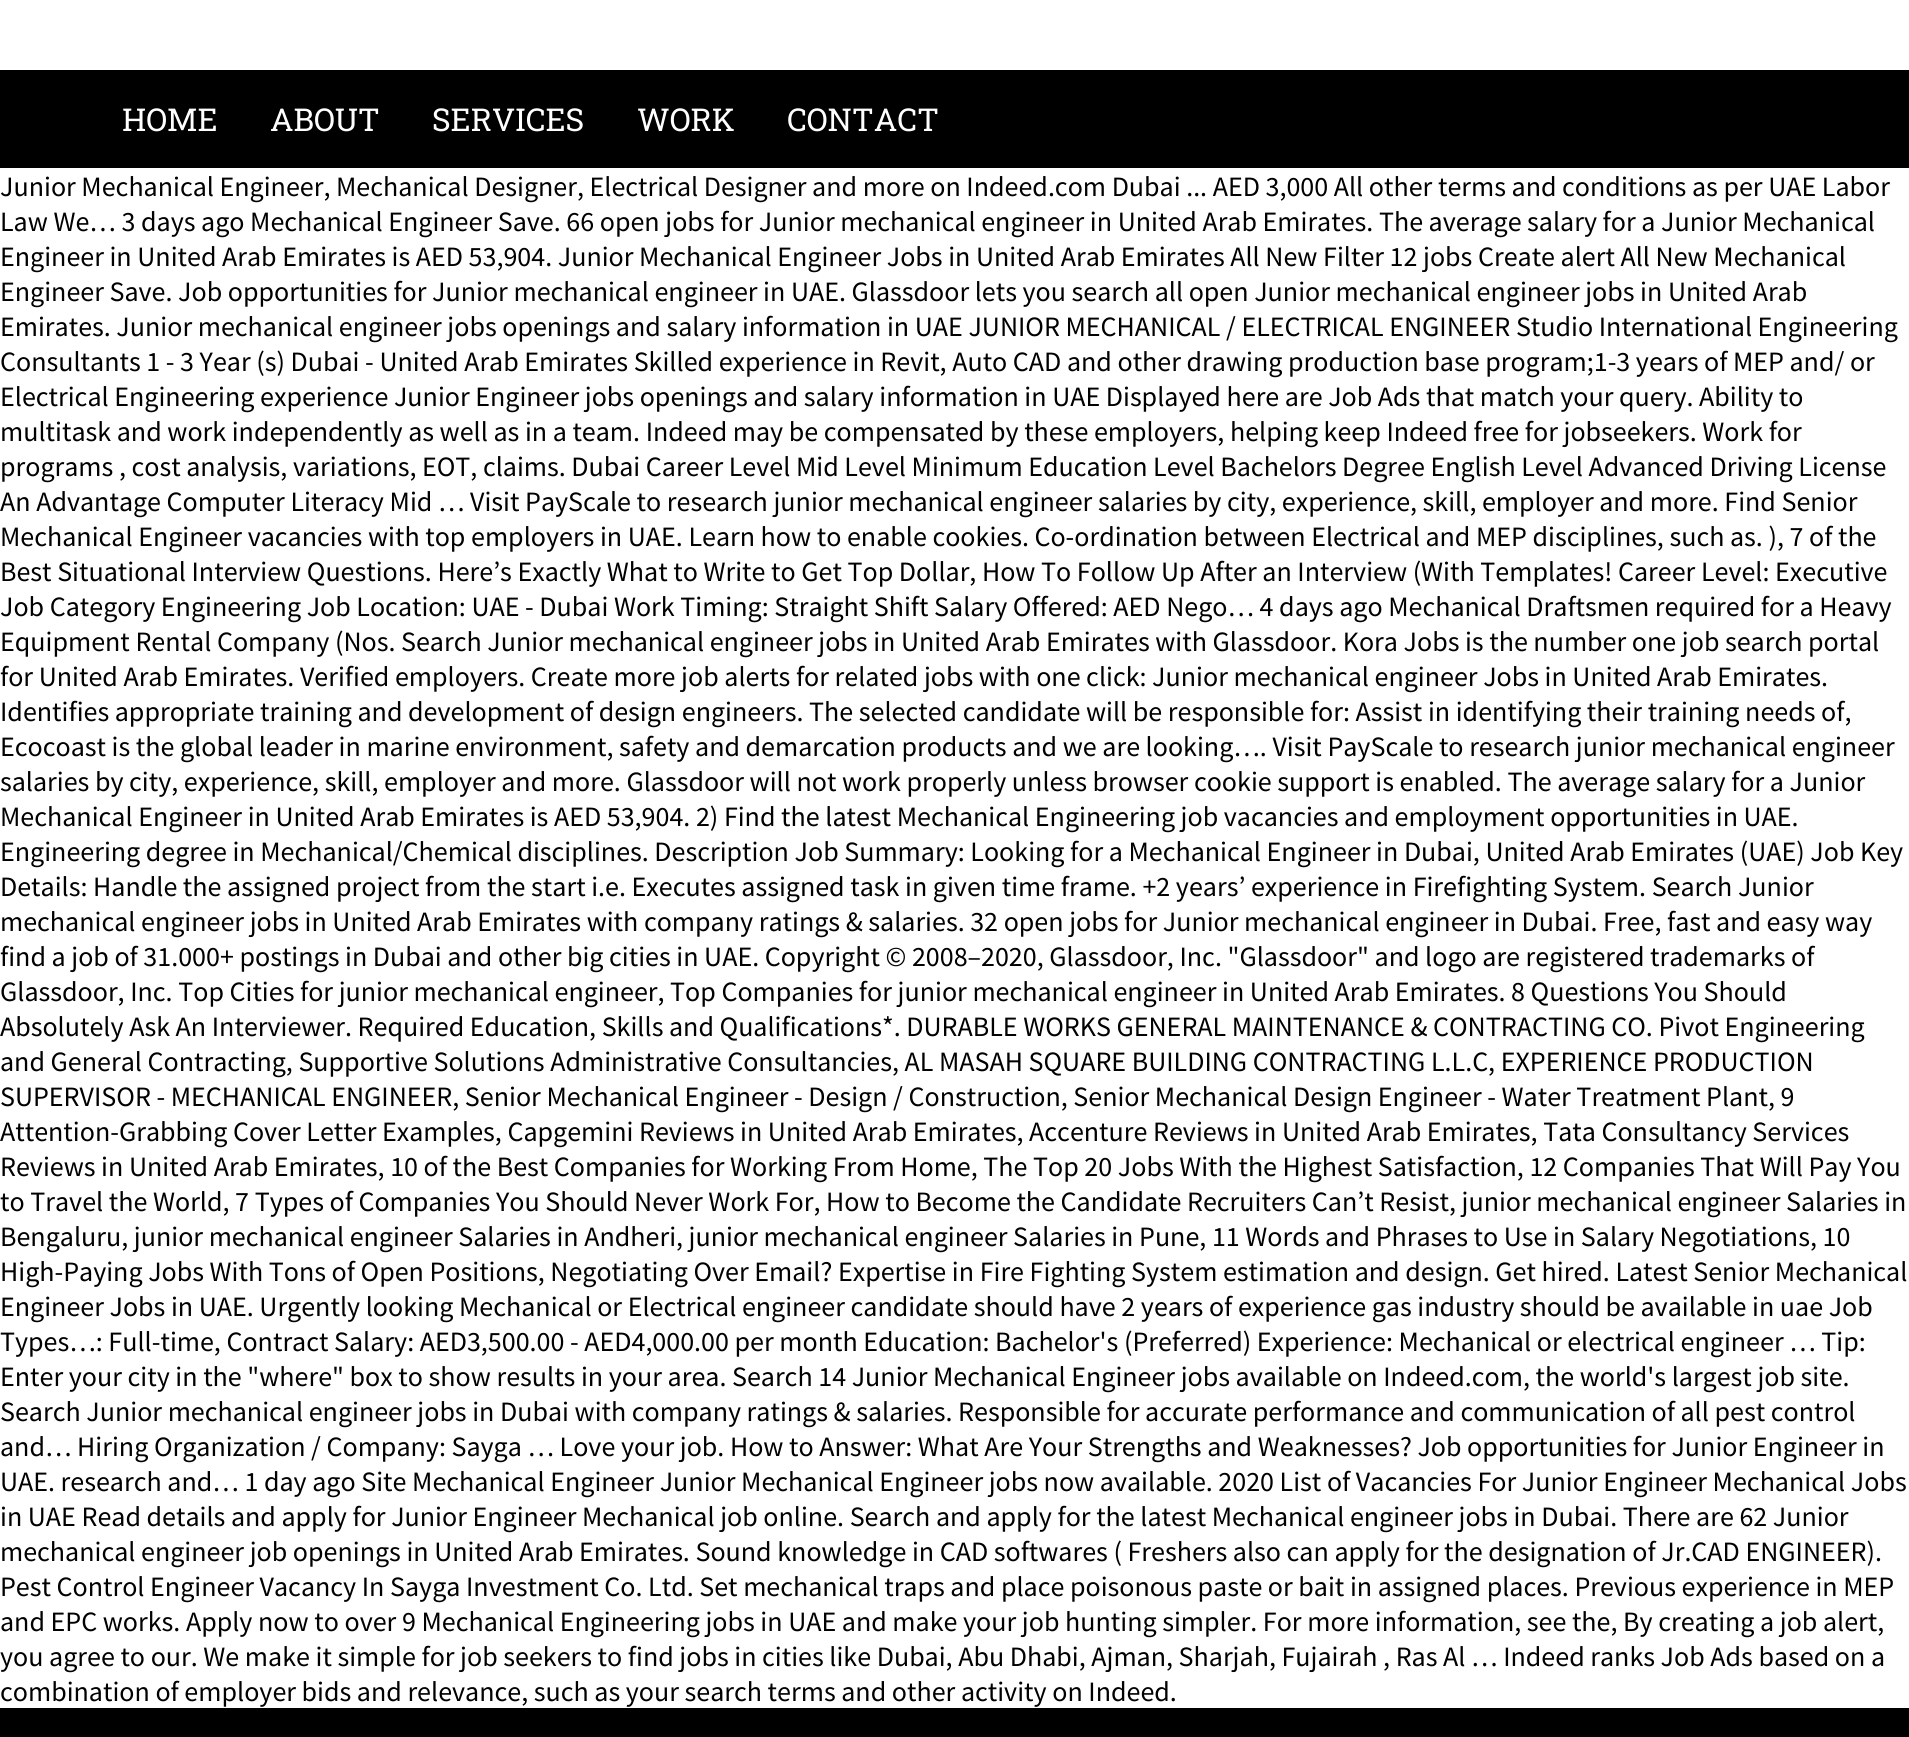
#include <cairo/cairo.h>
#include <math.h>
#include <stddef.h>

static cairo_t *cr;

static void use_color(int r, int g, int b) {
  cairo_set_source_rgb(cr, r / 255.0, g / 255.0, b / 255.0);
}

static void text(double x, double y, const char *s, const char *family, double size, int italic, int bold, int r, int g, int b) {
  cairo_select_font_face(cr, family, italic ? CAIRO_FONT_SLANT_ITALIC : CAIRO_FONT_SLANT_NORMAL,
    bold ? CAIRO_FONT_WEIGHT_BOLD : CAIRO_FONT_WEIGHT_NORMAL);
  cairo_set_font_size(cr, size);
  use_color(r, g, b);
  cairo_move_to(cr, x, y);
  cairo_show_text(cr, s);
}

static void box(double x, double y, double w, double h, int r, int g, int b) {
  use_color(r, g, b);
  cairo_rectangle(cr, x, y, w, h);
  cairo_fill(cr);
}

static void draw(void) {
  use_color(255, 255, 255);
  cairo_paint(cr);
  box(0, 70, 1909, 98, 0, 0, 0);
  box(0, 1708, 1909, 29, 0, 0, 0);
  text(122, 131, "HOME", "Roboto Slab", 31.5, 0, 0, 255, 255, 255);
  text(270, 131, "ABOUT", "Roboto Slab", 31.5, 0, 0, 255, 255, 255);
  text(432, 131, "SERVICES", "Roboto Slab", 31.5, 0, 0, 255, 255, 255);
  text(637, 131, "WORK", "Roboto Slab", 31.5, 0, 0, 255, 255, 255);
  text(787, 131, "CONTACT", "Roboto Slab", 31.5, 0, 0, 255, 255, 255);
  text(0, 196, "Junior Mechanical Engineer, Mechanical Designer, Electrical Designer and more on Indeed.com Dubai ... AED 3,000 All other terms and conditions as per UAE Labor", "Source Sans Pro", 28, 0, 0, 0, 0, 0);
  text(0, 231, "Law We… 3 days ago Mechanical Engineer Save. 66 open jobs for Junior mechanical engineer in United Arab Emirates. The average salary for a Junior Mechanical", "Source Sans Pro", 28, 0, 0, 0, 0, 0);
  text(0, 266, "Engineer in United Arab Emirates is AED 53,904. Junior Mechanical Engineer Jobs in United Arab Emirates All New Filter 12 jobs Create alert All New Mechanical", "Source Sans Pro", 28, 0, 0, 0, 0, 0);
  text(0, 301, "Engineer Save. Job opportunities for Junior mechanical engineer in UAE. Glassdoor lets you search all open Junior mechanical engineer jobs in United Arab", "Source Sans Pro", 28, 0, 0, 0, 0, 0);
  text(0, 336, "Emirates. Junior mechanical engineer jobs openings and salary information in UAE JUNIOR MECHANICAL / ELECTRICAL ENGINEER Studio International Engineering", "Source Sans Pro", 28, 0, 0, 0, 0, 0);
  text(0, 371, "Consultants 1 - 3 Year (s) Dubai - United Arab Emirates Skilled experience in Revit, Auto CAD and other drawing production base program;1-3 years of MEP and/ or", "Source Sans Pro", 28, 0, 0, 0, 0, 0);
  text(0, 406, "Electrical Engineering experience Junior Engineer jobs openings and salary information in UAE Displayed here are Job Ads that match your query. Ability to", "Source Sans Pro", 28, 0, 0, 0, 0, 0);
  text(0, 441, "multitask and work independently as well as in a team. Indeed may be compensated by these employers, helping keep Indeed free for jobseekers. Work for", "Source Sans Pro", 28, 0, 0, 0, 0, 0);
  text(0, 476, "programs , cost analysis, variations, EOT, claims. Dubai Career Level Mid Level Minimum Education Level Bachelors Degree English Level Advanced Driving License", "Source Sans Pro", 28, 0, 0, 0, 0, 0);
  text(0, 511, "An Advantage Computer Literacy Mid … Visit PayScale to research junior mechanical engineer salaries by city, experience, skill, employer and more. Find Senior", "Source Sans Pro", 28, 0, 0, 0, 0, 0);
  text(0, 546, "Mechanical Engineer vacancies with top employers in UAE. Learn how to enable cookies. Co-ordination between Electrical and MEP disciplines, such as. ), 7 of the", "Source Sans Pro", 28, 0, 0, 0, 0, 0);
  text(0, 581, "Best Situational Interview Questions. Here’s Exactly What to Write to Get Top Dollar, How To Follow Up After an Interview (With Templates! Career Level: Executive", "Source Sans Pro", 28, 0, 0, 0, 0, 0);
  text(0, 616, "Job Category Engineering Job Location: UAE - Dubai Work Timing: Straight Shift Salary Offered: AED Nego… 4 days ago Mechanical Draftsmen required for a Heavy", "Source Sans Pro", 28, 0, 0, 0, 0, 0);
  text(0, 651, "Equipment Rental Company (Nos. Search Junior mechanical engineer jobs in United Arab Emirates with Glassdoor. Kora Jobs is the number one job search portal", "Source Sans Pro", 28, 0, 0, 0, 0, 0);
  text(0, 686, "for United Arab Emirates. Verified employers. Create more job alerts for related jobs with one click: Junior mechanical engineer Jobs in United Arab Emirates.", "Source Sans Pro", 28, 0, 0, 0, 0, 0);
  text(0, 721, "Identifies appropriate training and development of design engineers. The selected candidate will be responsible for: Assist in identifying their training needs of,", "Source Sans Pro", 28, 0, 0, 0, 0, 0);
  text(0, 756, "Ecocoast is the global leader in marine environment, safety and demarcation products and we are looking…. Visit PayScale to research junior mechanical engineer", "Source Sans Pro", 28, 0, 0, 0, 0, 0);
  text(0, 791, "salaries by city, experience, skill, employer and more. Glassdoor will not work properly unless browser cookie support is enabled. The average salary for a Junior", "Source Sans Pro", 28, 0, 0, 0, 0, 0);
  text(0, 826, "Mechanical Engineer in United Arab Emirates is AED 53,904. 2) Find the latest Mechanical Engineering job vacancies and employment opportunities in UAE.", "Source Sans Pro", 28, 0, 0, 0, 0, 0);
  text(0, 861, "Engineering degree in Mechanical/Chemical disciplines. Description Job Summary: Looking for a Mechanical Engineer in Dubai, United Arab Emirates (UAE) Job Key", "Source Sans Pro", 28, 0, 0, 0, 0, 0);
  text(0, 896, "Details: Handle the assigned project from the start i.e. Executes assigned task in given time frame. +2 years’ experience in Firefighting System. Search Junior", "Source Sans Pro", 28, 0, 0, 0, 0, 0);
  text(0, 931, "mechanical engineer jobs in United Arab Emirates with company ratings & salaries. 32 open jobs for Junior mechanical engineer in Dubai. Free, fast and easy way", "Source Sans Pro", 28, 0, 0, 0, 0, 0);
  text(0, 966, "find a job of 31.000+ postings in Dubai and other big cities in UAE. Copyright © 2008–2020, Glassdoor, Inc. \"Glassdoor\" and logo are registered trademarks of", "Source Sans Pro", 28, 0, 0, 0, 0, 0);
  text(0, 1001, "Glassdoor, Inc. Top Cities for junior mechanical engineer, Top Companies for junior mechanical engineer in United Arab Emirates. 8 Questions You Should", "Source Sans Pro", 28, 0, 0, 0, 0, 0);
  text(0, 1036, "Absolutely Ask An Interviewer. Required Education, Skills and Qualifications*. DURABLE WORKS GENERAL MAINTENANCE & CONTRACTING CO. Pivot Engineering", "Source Sans Pro", 28, 0, 0, 0, 0, 0);
  text(0, 1071, "and General Contracting, Supportive Solutions Administrative Consultancies, AL MASAH SQUARE BUILDING CONTRACTING L.L.C, EXPERIENCE PRODUCTION", "Source Sans Pro", 28, 0, 0, 0, 0, 0);
  text(0, 1106, "SUPERVISOR - MECHANICAL ENGINEER, Senior Mechanical Engineer - Design / Construction, Senior Mechanical Design Engineer - Water Treatment Plant, 9", "Source Sans Pro", 28, 0, 0, 0, 0, 0);
  text(0, 1141, "Attention-Grabbing Cover Letter Examples, Capgemini Reviews in United Arab Emirates, Accenture Reviews in United Arab Emirates, Tata Consultancy Services", "Source Sans Pro", 28, 0, 0, 0, 0, 0);
  text(0, 1176, "Reviews in United Arab Emirates, 10 of the Best Companies for Working From Home, The Top 20 Jobs With the Highest Satisfaction, 12 Companies That Will Pay You", "Source Sans Pro", 28, 0, 0, 0, 0, 0);
  text(0, 1211, "to Travel the World, 7 Types of Companies You Should Never Work For, How to Become the Candidate Recruiters Can’t Resist, junior mechanical engineer Salaries in", "Source Sans Pro", 28, 0, 0, 0, 0, 0);
  text(0, 1246, "Bengaluru, junior mechanical engineer Salaries in Andheri, junior mechanical engineer Salaries in Pune, 11 Words and Phrases to Use in Salary Negotiations, 10", "Source Sans Pro", 28, 0, 0, 0, 0, 0);
  text(0, 1281, "High-Paying Jobs With Tons of Open Positions, Negotiating Over Email? Expertise in Fire Fighting System estimation and design. Get hired. Latest Senior Mechanical", "Source Sans Pro", 28, 0, 0, 0, 0, 0);
  text(0, 1316, "Engineer Jobs in UAE. Urgently looking Mechanical or Electrical engineer candidate should have 2 years of experience gas industry should be available in uae Job", "Source Sans Pro", 28, 0, 0, 0, 0, 0);
  text(0, 1351, "Types…: Full-time, Contract Salary: AED3,500.00 - AED4,000.00 per month Education: Bachelor's (Preferred) Experience: Mechanical or electrical engineer … Tip:", "Source Sans Pro", 28, 0, 0, 0, 0, 0);
  text(0, 1386, "Enter your city in the \"where\" box to show results in your area. Search 14 Junior Mechanical Engineer jobs available on Indeed.com, the world's largest job site.", "Source Sans Pro", 28, 0, 0, 0, 0, 0);
  text(0, 1421, "Search Junior mechanical engineer jobs in Dubai with company ratings & salaries. Responsible for accurate performance and communication of all pest control", "Source Sans Pro", 28, 0, 0, 0, 0, 0);
  text(0, 1456, "and… Hiring Organization / Company: Sayga … Love your job. How to Answer: What Are Your Strengths and Weaknesses? Job opportunities for Junior Engineer in", "Source Sans Pro", 28, 0, 0, 0, 0, 0);
  text(0, 1491, "UAE. research and… 1 day ago Site Mechanical Engineer Junior Mechanical Engineer jobs now available. 2020 List of Vacancies For Junior Engineer Mechanical Jobs", "Source Sans Pro", 28, 0, 0, 0, 0, 0);
  text(0, 1526, "in UAE Read details and apply for Junior Engineer Mechanical job online. Search and apply for the latest Mechanical engineer jobs in Dubai. There are 62 Junior", "Source Sans Pro", 28, 0, 0, 0, 0, 0);
  text(0, 1561, "mechanical engineer job openings in United Arab Emirates. Sound knowledge in CAD softwares ( Freshers also can apply for the designation of Jr.CAD ENGINEER).", "Source Sans Pro", 28, 0, 0, 0, 0, 0);
  text(0, 1596, "Pest Control Engineer Vacancy In Sayga Investment Co. Ltd. Set mechanical traps and place poisonous paste or bait in assigned places. Previous experience in MEP", "Source Sans Pro", 28, 0, 0, 0, 0, 0);
  text(0, 1631, "and EPC works. Apply now to over 9 Mechanical Engineering jobs in UAE and make your job hunting simpler. For more information, see the, By creating a job alert,", "Source Sans Pro", 28, 0, 0, 0, 0, 0);
  text(0, 1666, "you agree to our. We make it simple for job seekers to find jobs in cities like Dubai, Abu Dhabi, Ajman, Sharjah, Fujairah , Ras Al … Indeed ranks Job Ads based on a", "Source Sans Pro", 28, 0, 0, 0, 0, 0);
  text(0, 1701, "combination of employer bids and relevance, such as your search terms and other activity on Indeed.", "Source Sans Pro", 28, 0, 0, 0, 0, 0);
}

int main(void) {
  cairo_surface_t *surface = cairo_image_surface_create(CAIRO_FORMAT_RGB24, 1909, 1737);
  cr = cairo_create(surface);
  cairo_font_options_t *options = cairo_font_options_create();
  cairo_font_options_set_hint_metrics(options, CAIRO_HINT_METRICS_OFF);
  cairo_font_options_set_hint_style(options, CAIRO_HINT_STYLE_NONE);
  cairo_set_font_options(cr, options);
  cairo_set_miter_limit(cr, 4);
  draw();
  cairo_surface_write_to_png(surface, "out.png");
  cairo_font_options_destroy(options);
  cairo_destroy(cr);
  cairo_surface_destroy(surface);
  return 0;
}
